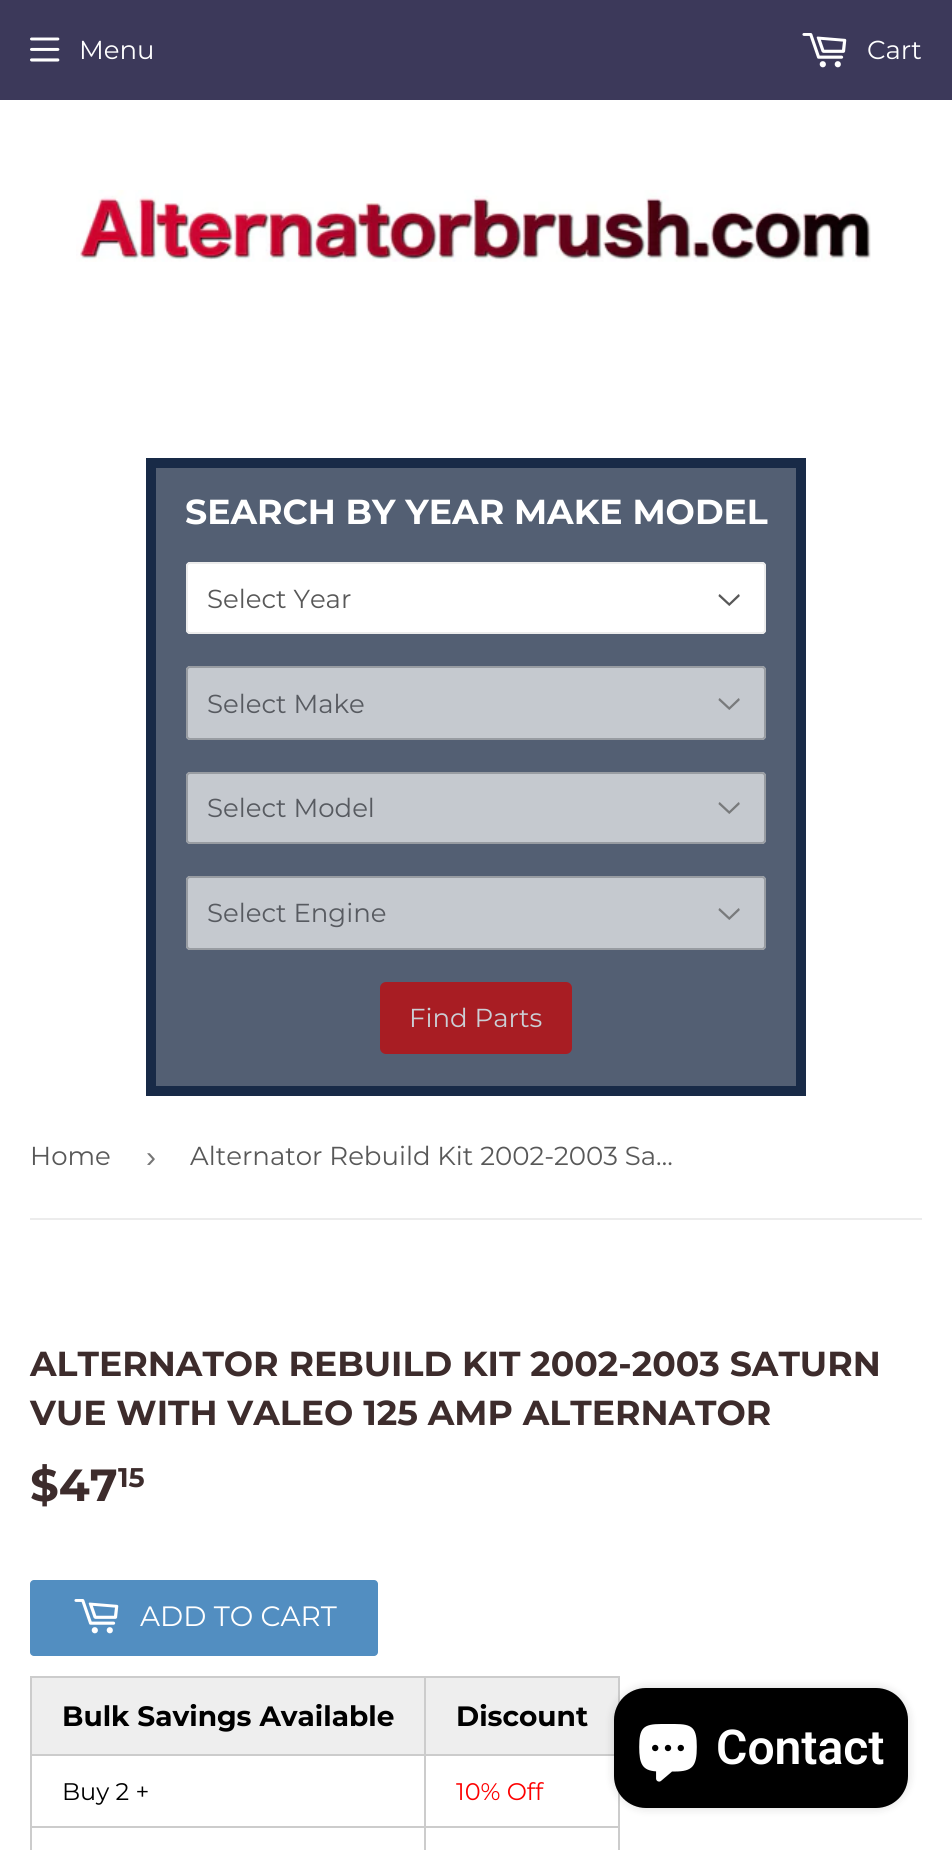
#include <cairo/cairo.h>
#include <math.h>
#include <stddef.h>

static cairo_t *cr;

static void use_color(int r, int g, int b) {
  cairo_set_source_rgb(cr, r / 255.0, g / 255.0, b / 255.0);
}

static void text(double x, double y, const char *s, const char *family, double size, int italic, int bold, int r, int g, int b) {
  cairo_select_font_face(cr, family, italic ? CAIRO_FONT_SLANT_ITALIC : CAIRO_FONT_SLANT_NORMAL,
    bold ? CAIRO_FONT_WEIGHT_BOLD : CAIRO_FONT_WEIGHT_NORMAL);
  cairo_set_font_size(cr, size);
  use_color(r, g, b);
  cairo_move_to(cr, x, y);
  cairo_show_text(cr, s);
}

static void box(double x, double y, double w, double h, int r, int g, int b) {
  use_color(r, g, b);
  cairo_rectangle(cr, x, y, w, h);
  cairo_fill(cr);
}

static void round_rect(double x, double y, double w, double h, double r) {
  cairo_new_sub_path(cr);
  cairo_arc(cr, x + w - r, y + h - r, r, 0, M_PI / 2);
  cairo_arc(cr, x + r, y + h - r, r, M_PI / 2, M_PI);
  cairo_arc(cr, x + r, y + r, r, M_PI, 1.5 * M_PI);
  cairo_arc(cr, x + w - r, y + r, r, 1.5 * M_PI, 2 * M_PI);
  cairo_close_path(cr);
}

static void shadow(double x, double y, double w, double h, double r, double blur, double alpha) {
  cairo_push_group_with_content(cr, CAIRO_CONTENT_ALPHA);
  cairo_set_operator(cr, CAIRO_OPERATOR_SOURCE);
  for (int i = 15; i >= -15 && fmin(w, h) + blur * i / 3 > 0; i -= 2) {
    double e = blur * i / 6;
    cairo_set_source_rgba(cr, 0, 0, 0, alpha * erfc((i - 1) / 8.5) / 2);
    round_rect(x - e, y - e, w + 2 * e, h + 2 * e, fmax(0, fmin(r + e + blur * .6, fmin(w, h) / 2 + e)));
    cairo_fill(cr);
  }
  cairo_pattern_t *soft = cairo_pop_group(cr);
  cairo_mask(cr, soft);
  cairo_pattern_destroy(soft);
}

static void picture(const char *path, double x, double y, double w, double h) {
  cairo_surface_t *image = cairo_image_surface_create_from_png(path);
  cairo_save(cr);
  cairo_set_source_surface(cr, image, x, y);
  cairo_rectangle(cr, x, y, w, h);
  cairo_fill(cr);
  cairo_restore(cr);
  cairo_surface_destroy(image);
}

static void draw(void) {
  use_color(255, 255, 255);
  cairo_paint(cr);
  box(0, 0, 952, 100, 60, 57, 90);
  picture("img_01.png", 30, 37, 30, 25);
  picture("img_02.png", 802, 33, 45, 35);
  picture("img_03.png", 76, 190, 795, 72);
  use_color(83, 95, 115);
  cairo_rectangle(cr, 151, 463, 650, 628);
  cairo_fill_preserve(cr);
  use_color(24, 42, 71);
  cairo_set_line_width(cr, 10);
  cairo_stroke(cr);
  use_color(255, 255, 255);
  round_rect(186, 562, 580, 72, 4);
  cairo_fill(cr);
  picture("img_04.png", 718, 594, 22, 12);
  round_rect(187, 563, 578, 70, 3);
  use_color(236, 236, 236);
  cairo_set_line_width(cr, 2);
  cairo_stroke(cr);
  use_color(197, 201, 207);
  round_rect(186, 666, 580, 74, 4);
  cairo_fill(cr);
  picture("img_05.png", 718, 698, 22, 12);
  round_rect(187, 667, 578, 72, 3);
  use_color(152, 156, 162);
  cairo_stroke(cr);
  use_color(197, 201, 207);
  round_rect(186, 772, 580, 72, 4);
  cairo_fill(cr);
  picture("img_05.png", 718, 802, 22, 12);
  round_rect(187, 773, 578, 70, 3);
  use_color(152, 156, 162);
  cairo_stroke(cr);
  use_color(197, 201, 207);
  round_rect(186, 876, 580, 74, 4);
  cairo_fill(cr);
  picture("img_05.png", 718, 908, 22, 12);
  round_rect(187, 877, 578, 72, 3);
  use_color(152, 156, 162);
  cairo_stroke(cr);
  use_color(168, 29, 35);
  round_rect(380, 982, 192, 72, 6);
  cairo_fill(cr);
  box(30, 1218, 892, 2, 236, 236, 236);
  use_color(82, 142, 193);
  round_rect(30, 1580, 348, 76, 4);
  cairo_fill(cr);
  picture("img_06.png", 74, 1599, 45, 35);
  box(32, 1678, 586, 76, 238, 238, 238);
  box(424, 1676, 196, 2, 204, 204, 204);
  box(424, 1754, 196, 2, 204, 204, 204);
  box(424, 1826, 196, 2, 204, 204, 204);
  box(424, 1826, 2, 24, 204, 204, 204);
  box(30, 1826, 396, 2, 204, 204, 204);
  box(424, 1754, 2, 74, 204, 204, 204);
  box(30, 1754, 396, 2, 204, 204, 204);
  box(424, 1676, 2, 80, 204, 204, 204);
  box(30, 1676, 396, 2, 204, 204, 204);
  box(30, 1826, 2, 24, 204, 204, 204);
  box(30, 1754, 2, 74, 204, 204, 204);
  box(30, 1676, 2, 80, 204, 204, 204);
  box(618, 1676, 2, 29, 204, 204, 204);
  box(618, 1791, 2, 59, 204, 204, 204);
  use_color(0, 0, 0);
  shadow(614, 1688, 294, 120, 32, 5, 0.15);
  use_color(0, 0, 0);
  round_rect(614, 1688, 294, 120, 32);
  cairo_fill(cr);
  picture("img_07.png", 639, 1724, 58, 58);
  text(79, 59, "Menu", "Montserrat", 26, 0, 0, 255, 255, 255);
  text(867, 59, "Cart", "Montserrat", 26, 0, 0, 255, 255, 255);
  text(185, 524, "SEARCH BY YEAR MAKE MODEL", "Montserrat", 34.7, 0, 1, 255, 255, 255);
  text(207, 608, "Select Year", "Montserrat", 26, 0, 0, 88, 88, 88);
  text(207, 713, "Select Make", "Montserrat", 26, 0, 0, 87, 90, 96);
  text(207, 817, "Select Model", "Montserrat", 26, 0, 0, 87, 90, 96);
  text(207, 922, "Select Engine", "Montserrat", 26, 0, 0, 87, 90, 96);
  text(409, 1027, "Find Parts", "Montserrat", 26, 0, 0, 203, 207, 213);
  text(30, 1165, "Home", "Montserrat", 26, 0, 0, 88, 88, 88);
  text(146, 1167, "›", "Liberation Sans", 30, 0, 0, 118, 118, 118);
  text(190, 1165, "Alternator Rebuild Kit 2002-2003 Sa…", "Montserrat", 26, 0, 0, 88, 88, 88);
  text(30, 1376, "ALTERNATOR REBUILD KIT 2002-2003 SATURN", "Montserrat", 34.7, 0, 1, 61, 44, 44);
  text(30, 1425, "VUE WITH VALEO 125 AMP ALTERNATOR", "Montserrat", 34.7, 0, 1, 61, 44, 44);
  text(30, 1501, "$47", "Montserrat", 45, 0, 1, 61, 44, 44);
  text(118, 1487, "15", "Montserrat", 27, 0, 1, 61, 44, 44);
  text(140, 1626, "ADD TO CART", "Montserrat", 28, 0, 0, 255, 255, 255);
  text(62, 1726, "Bulk Savings Available", "Montserrat", 28, 0, 1, 0, 0, 0);
  text(456, 1726, "Discount", "Montserrat", 28, 0, 1, 0, 0, 0);
  text(62, 1800, "Buy 2 +", "Montserrat", 24, 0, 0, 0, 0, 0);
  text(456, 1800, "10% Off", "Montserrat", 24, 0, 0, 253, 0, 0);
  text(716, 1764, "Contact", "Roboto SemiBold", 48, 0, 0, 255, 255, 255);
}

int main(void) {
  cairo_surface_t *surface = cairo_image_surface_create(CAIRO_FORMAT_RGB24, 952, 1850);
  cr = cairo_create(surface);
  cairo_font_options_t *options = cairo_font_options_create();
  cairo_font_options_set_hint_metrics(options, CAIRO_HINT_METRICS_OFF);
  cairo_font_options_set_hint_style(options, CAIRO_HINT_STYLE_NONE);
  cairo_set_font_options(cr, options);
  cairo_set_miter_limit(cr, 4);
  draw();
  cairo_surface_write_to_png(surface, "out.png");
  cairo_font_options_destroy(options);
  cairo_destroy(cr);
  cairo_surface_destroy(surface);
  return 0;
}
